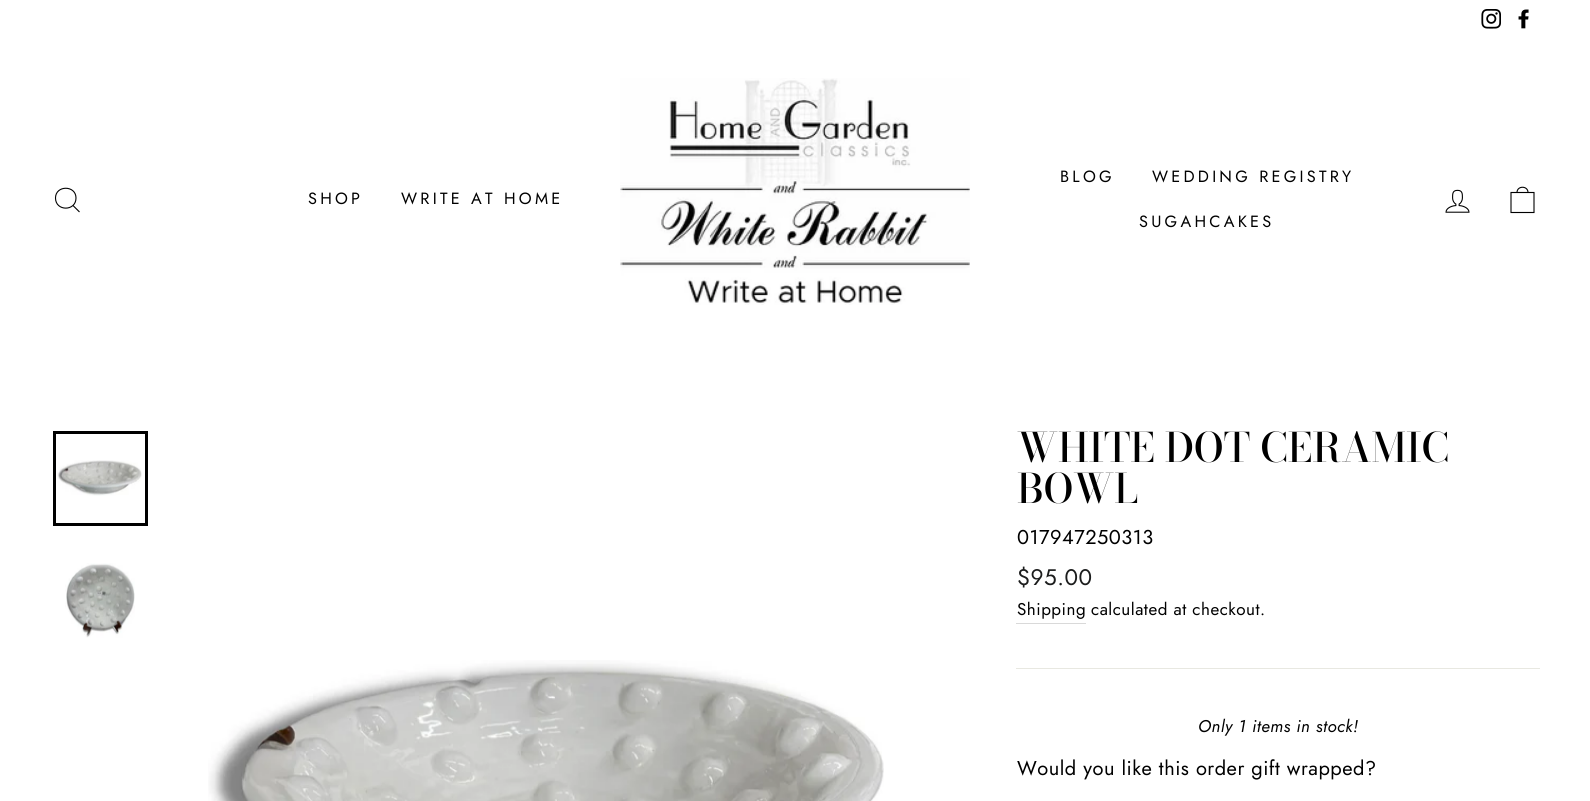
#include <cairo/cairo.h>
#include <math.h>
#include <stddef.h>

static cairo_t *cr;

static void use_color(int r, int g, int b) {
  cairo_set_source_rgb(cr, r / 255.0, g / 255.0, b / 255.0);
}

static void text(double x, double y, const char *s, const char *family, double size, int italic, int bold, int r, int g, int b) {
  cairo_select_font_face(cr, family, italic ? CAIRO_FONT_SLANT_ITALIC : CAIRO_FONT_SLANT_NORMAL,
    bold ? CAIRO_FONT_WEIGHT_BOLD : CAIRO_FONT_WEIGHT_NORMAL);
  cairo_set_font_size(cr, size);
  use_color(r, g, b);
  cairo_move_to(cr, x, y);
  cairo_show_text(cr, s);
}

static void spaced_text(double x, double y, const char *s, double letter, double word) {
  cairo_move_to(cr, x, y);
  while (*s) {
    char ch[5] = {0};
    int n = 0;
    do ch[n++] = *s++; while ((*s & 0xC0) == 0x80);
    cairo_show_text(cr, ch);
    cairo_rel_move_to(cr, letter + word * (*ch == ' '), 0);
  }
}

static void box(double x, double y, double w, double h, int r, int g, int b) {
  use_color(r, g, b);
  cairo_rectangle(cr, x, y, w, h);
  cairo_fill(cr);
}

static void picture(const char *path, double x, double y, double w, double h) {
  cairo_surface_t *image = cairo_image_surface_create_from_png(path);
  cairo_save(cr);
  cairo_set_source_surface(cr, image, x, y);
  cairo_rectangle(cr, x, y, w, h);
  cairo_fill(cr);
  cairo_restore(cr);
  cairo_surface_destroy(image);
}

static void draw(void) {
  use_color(255, 255, 255);
  cairo_paint(cr);
  picture("img_01.png", 1481, 9, 20, 20);
  picture("img_02.png", 1518, 9, 11, 20);
  cairo_new_path(cr);
  cairo_move_to(cr, 76, 198);
  cairo_curve_to(cr, 76, 211.5, 55.5, 211.5, 55.5, 198);
  cairo_curve_to(cr, 55.5, 185, 76, 185, 76, 198);
  cairo_close_path(cr);
  cairo_move_to(cr, 79.5, 212);
  cairo_line_to(cr, 73, 205.5);
  use_color(0, 0, 0);
  cairo_set_line_width(cr, 1.1);
  cairo_stroke(cr);
  picture("img_03.png", 620, 78, 350, 227);
  picture("img_04.png", 1445, 189, 25, 24);
  cairo_new_path(cr);
  cairo_move_to(cr, 1511, 192.5);
  cairo_line_to(cr, 1534, 192.5);
  cairo_line_to(cr, 1534, 212.5);
  cairo_line_to(cr, 1511, 212.5);
  cairo_close_path(cr);
  cairo_move_to(cr, 1517, 192.5);
  cairo_curve_to(cr, 1517, 185.5, 1528, 185.5, 1528, 192.5);
  cairo_stroke(cr);
  picture("img_05.png", 57, 460, 85, 36);
  cairo_rectangle(cr, 54.5, 432.5, 92, 92);
  cairo_set_line_width(cr, 3);
  cairo_stroke(cr);
  picture("img_06.png", 65, 563, 70, 75);
  picture("img_07.png", 208, 660, 676, 141);
  box(1016, 623, 70, 1, 217, 217, 217);
  box(1016, 668, 524, 1, 232, 232, 225);
  cairo_select_font_face(cr, "Jost", CAIRO_FONT_SLANT_NORMAL, CAIRO_FONT_WEIGHT_NORMAL);
  cairo_set_font_size(cr, 16.25);
  use_color(0, 0, 0);
  spaced_text(308, 204, "SHOP", 3.25, 0);
  spaced_text(401, 204, "WRITE AT HOME", 3.25, 0);
  spaced_text(1060, 182, "BLOG", 3.25, 0);
  spaced_text(1152, 182, "WEDDING REGISTRY", 3.25, 0);
  spaced_text(1139, 227, "SUGAHCAKES", 3.25, 0);
  text(1017, 462, "WHITE DOT CERAMIC", "Bodoni Moda Medium", 40.4, 0, 0, 0, 0, 0);
  text(1017, 503, "BOWL", "Bodoni Moda Medium", 40.4, 0, 0, 0, 0, 0);
  cairo_select_font_face(cr, "Jost", CAIRO_FONT_SLANT_NORMAL, CAIRO_FONT_WEIGHT_NORMAL);
  cairo_set_font_size(cr, 20);
  spaced_text(1017, 544, "017947250313", 0.5, 0);
  cairo_set_font_size(cr, 22.5);
  use_color(28, 29, 29);
  spaced_text(1017, 585, "$95.00", 0.5, 0);
  cairo_set_font_size(cr, 17);
  use_color(0, 0, 0);
  spaced_text(1017, 615, "Shipping", 0.5, 0);
  spaced_text(1091, 615, "calculated at checkout.", 0.5, 0);
  cairo_select_font_face(cr, "Jost", CAIRO_FONT_SLANT_ITALIC, CAIRO_FONT_WEIGHT_NORMAL);
  spaced_text(1198, 732, "Only 1 items in stock!", 0.5, 0);
  cairo_select_font_face(cr, "Jost", CAIRO_FONT_SLANT_NORMAL, CAIRO_FONT_WEIGHT_NORMAL);
  cairo_set_font_size(cr, 20);
  spaced_text(1017, 775, "Would you like this order gift wrapped?", 0.5, 0);
}

int main(void) {
  cairo_surface_t *surface = cairo_image_surface_create(CAIRO_FORMAT_RGB24, 1590, 801);
  cr = cairo_create(surface);
  cairo_font_options_t *options = cairo_font_options_create();
  cairo_font_options_set_hint_metrics(options, CAIRO_HINT_METRICS_OFF);
  cairo_font_options_set_hint_style(options, CAIRO_HINT_STYLE_NONE);
  cairo_set_font_options(cr, options);
  cairo_set_miter_limit(cr, 4);
  draw();
  cairo_surface_write_to_png(surface, "out.png");
  cairo_font_options_destroy(options);
  cairo_destroy(cr);
  cairo_surface_destroy(surface);
  return 0;
}
